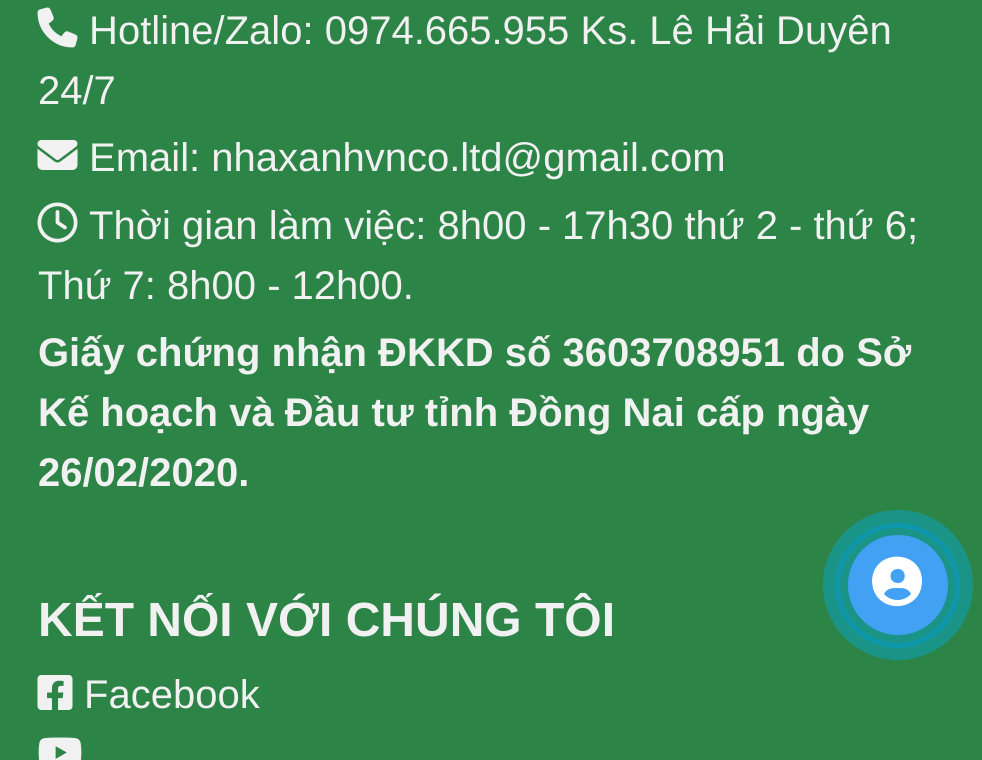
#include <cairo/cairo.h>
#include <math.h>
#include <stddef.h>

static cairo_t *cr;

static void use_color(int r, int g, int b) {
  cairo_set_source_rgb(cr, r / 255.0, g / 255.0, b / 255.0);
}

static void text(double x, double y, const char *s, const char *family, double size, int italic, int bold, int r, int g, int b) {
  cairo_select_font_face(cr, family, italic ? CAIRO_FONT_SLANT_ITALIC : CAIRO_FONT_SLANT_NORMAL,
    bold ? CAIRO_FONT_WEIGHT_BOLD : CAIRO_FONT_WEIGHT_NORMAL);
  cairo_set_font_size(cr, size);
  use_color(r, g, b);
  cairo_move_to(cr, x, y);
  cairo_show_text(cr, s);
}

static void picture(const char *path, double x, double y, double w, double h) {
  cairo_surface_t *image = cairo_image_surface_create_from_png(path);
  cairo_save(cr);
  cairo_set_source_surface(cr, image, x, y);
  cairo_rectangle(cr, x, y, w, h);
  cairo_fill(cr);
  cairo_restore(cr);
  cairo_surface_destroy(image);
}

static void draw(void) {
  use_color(44, 132, 71);
  cairo_paint(cr);
  picture("img_01.png", 37, 7, 41, 41);
  picture("img_02.png", 37, 140, 41, 30);
  picture("img_03.png", 37, 202, 41, 41);
  picture("img_04.png", 37, 675, 36, 35);
  picture("img_05.png", 38, 737, 44, 23);
  cairo_arc(cr, 897.5, 585.5, 60, 0, 2 * M_PI);
  use_color(22, 135, 128);
  cairo_set_line_width(cr, 5);
  cairo_stroke(cr);
  cairo_set_source_rgba(cr, 0, 0.686, 0.949, 0.38);
  cairo_arc(cr, 898, 585, 75, 0, 2 * M_PI);
  cairo_fill(cr);
  use_color(67, 161, 243);
  cairo_arc(cr, 898, 585, 50, 0, 2 * M_PI);
  cairo_fill(cr);
  use_color(255, 255, 255);
  cairo_new_path(cr);
  cairo_move_to(cr, 911, 594);
  cairo_curve_to(cr, 908, 588, 903, 588, 898, 588);
  cairo_curve_to(cr, 892, 588, 887, 588, 884, 594);
  cairo_curve_to(cr, 891, 602, 904, 602, 911, 594);
  cairo_close_path(cr);
  cairo_move_to(cr, 872, 581);
  cairo_curve_to(cr, 873, 548, 922, 549, 922, 581);
  cairo_curve_to(cr, 922, 614, 873, 615, 872, 581);
  cairo_close_path(cr);
  cairo_move_to(cr, 898, 583);
  cairo_curve_to(cr, 907, 583, 907, 569, 898, 569);
  cairo_curve_to(cr, 888, 569, 888, 583, 898, 583);
  cairo_close_path(cr);
  cairo_fill(cr);
  text(89, 44, "Hotline/Zalo: 0974.665.955 Ks. Lê Hải Duyên", "Liberation Sans", 40, 0, 0, 241, 241, 241);
  text(38, 104, "24/7", "Liberation Sans", 40, 0, 0, 241, 241, 241);
  text(89, 171, "Email: nhaxanhvnco.ltd@gmail.com", "Liberation Sans", 40, 0, 0, 241, 241, 241);
  text(89, 239, "Thời gian làm việc: 8h00 - 17h30 thứ 2 - thứ 6;", "Liberation Sans", 40, 0, 0, 241, 241, 241);
  text(38, 299, "Thứ 7: 8h00 - 12h00.", "Liberation Sans", 40, 0, 0, 241, 241, 241);
  text(38, 366, "Giấy chứng nhận ĐKKD số 3603708951 do Sở", "Liberation Sans", 40, 0, 1, 241, 241, 241);
  text(38, 426, "Kế hoạch và Đầu tư tỉnh Đồng Nai cấp ngày", "Liberation Sans", 40, 0, 1, 241, 241, 241);
  text(38, 486, "26/02/2020.", "Liberation Sans", 40, 0, 1, 241, 241, 241);
  text(38, 636, "KẾT NỐI VỚI CHÚNG TÔI", "Liberation Sans", 48, 0, 1, 241, 241, 241);
  text(84, 708, "Facebook", "Liberation Sans", 40, 0, 0, 241, 241, 241);
}

int main(void) {
  cairo_surface_t *surface = cairo_image_surface_create(CAIRO_FORMAT_RGB24, 982, 760);
  cr = cairo_create(surface);
  cairo_font_options_t *options = cairo_font_options_create();
  cairo_font_options_set_hint_metrics(options, CAIRO_HINT_METRICS_OFF);
  cairo_font_options_set_hint_style(options, CAIRO_HINT_STYLE_NONE);
  cairo_set_font_options(cr, options);
  cairo_set_miter_limit(cr, 4);
  draw();
  cairo_surface_write_to_png(surface, "out.png");
  cairo_font_options_destroy(options);
  cairo_destroy(cr);
  cairo_surface_destroy(surface);
  return 0;
}
